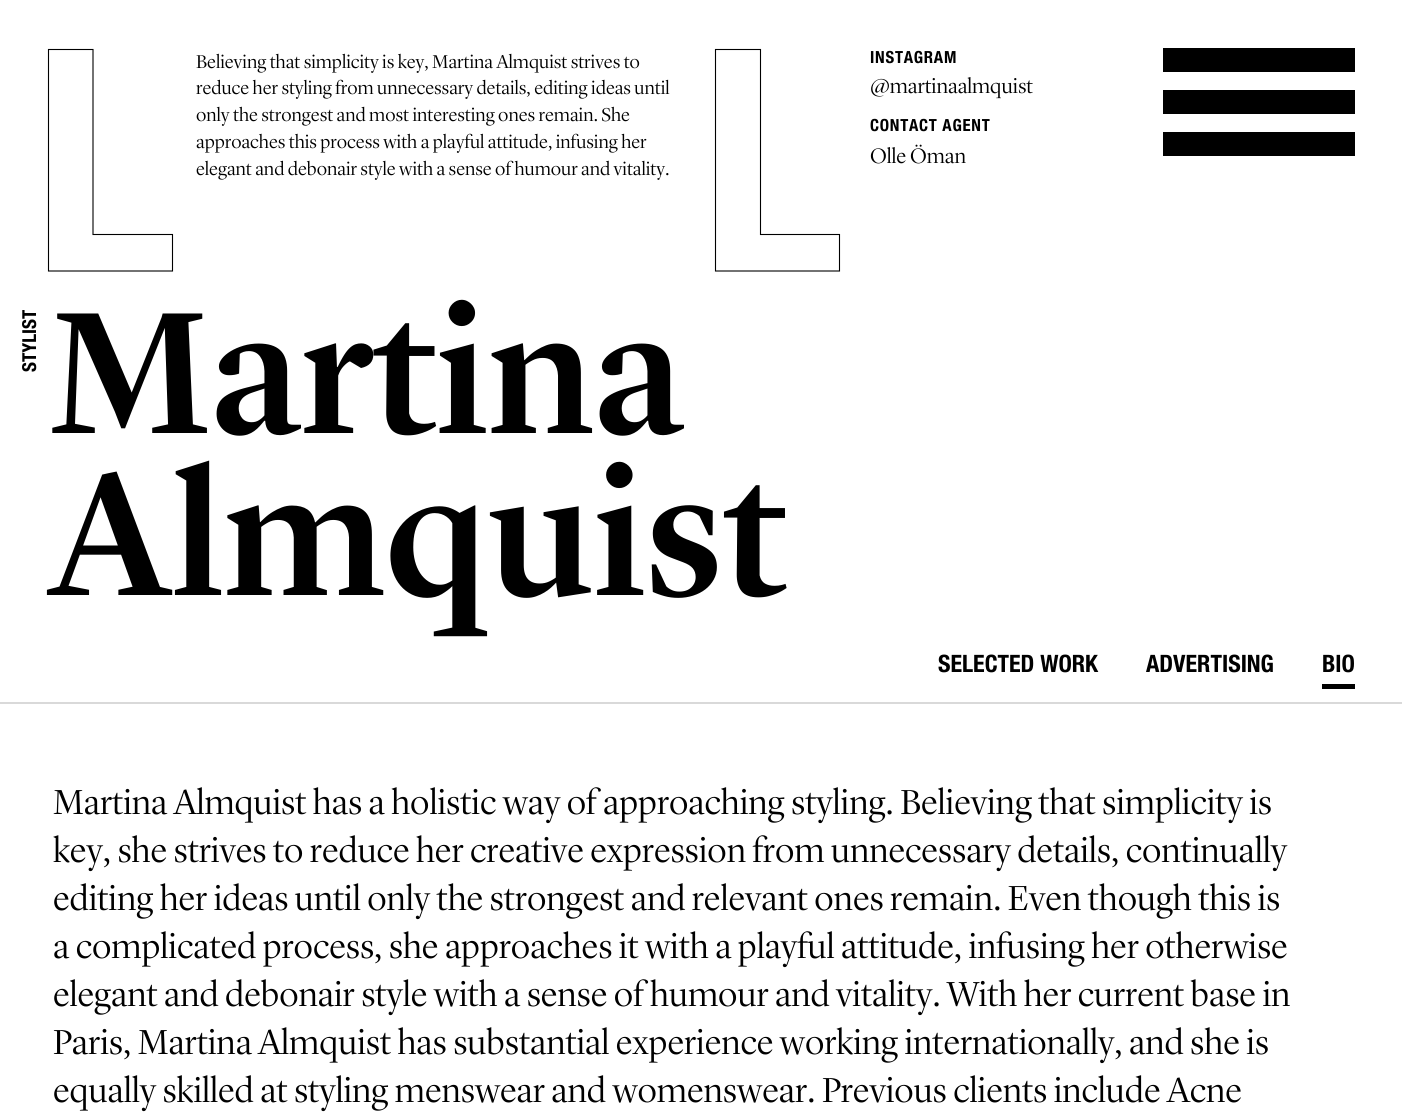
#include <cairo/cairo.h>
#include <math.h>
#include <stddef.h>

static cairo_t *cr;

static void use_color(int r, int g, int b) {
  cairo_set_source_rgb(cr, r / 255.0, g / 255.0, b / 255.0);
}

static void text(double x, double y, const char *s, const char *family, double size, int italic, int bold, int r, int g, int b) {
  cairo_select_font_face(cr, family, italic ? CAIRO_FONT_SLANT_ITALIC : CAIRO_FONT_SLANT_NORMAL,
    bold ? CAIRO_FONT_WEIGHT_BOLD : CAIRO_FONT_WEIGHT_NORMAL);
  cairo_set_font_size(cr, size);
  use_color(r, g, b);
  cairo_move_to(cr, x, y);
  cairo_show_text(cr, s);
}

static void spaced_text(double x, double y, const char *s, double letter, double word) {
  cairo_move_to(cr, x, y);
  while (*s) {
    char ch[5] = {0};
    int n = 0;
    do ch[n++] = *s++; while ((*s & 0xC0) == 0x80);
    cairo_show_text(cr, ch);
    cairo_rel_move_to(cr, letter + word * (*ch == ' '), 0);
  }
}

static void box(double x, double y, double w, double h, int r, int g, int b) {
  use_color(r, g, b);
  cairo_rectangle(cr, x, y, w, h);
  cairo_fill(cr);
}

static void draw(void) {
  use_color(255, 255, 255);
  cairo_paint(cr);
  cairo_new_path(cr);
  cairo_move_to(cr, 172.5, 271);
  cairo_line_to(cr, 172.5, 234.5);
  cairo_line_to(cr, 93, 234.5);
  cairo_line_to(cr, 93, 49.5);
  cairo_line_to(cr, 48.5, 49.5);
  cairo_line_to(cr, 48.5, 271);
  cairo_close_path(cr);
  use_color(0, 0, 0);
  cairo_set_line_width(cr, 1.1);
  cairo_stroke(cr);
  cairo_new_path(cr);
  cairo_move_to(cr, 839.5, 271);
  cairo_line_to(cr, 839.5, 234.5);
  cairo_line_to(cr, 760.5, 234.5);
  cairo_line_to(cr, 760.5, 49.5);
  cairo_line_to(cr, 715.5, 49.5);
  cairo_line_to(cr, 715.5, 271);
  cairo_close_path(cr);
  cairo_stroke(cr);
  box(1163, 48, 192, 24, 0, 0, 0);
  box(1163, 90, 192, 24, 0, 0, 0);
  box(1163, 132, 192, 24, 0, 0, 0);
  box(0, 702, 1402, 2, 217, 217, 217);
  box(1322, 684, 33, 5, 0, 0, 0);
  text(196, 68, "Believing that simplicity is key, Martina Almquist strives to", "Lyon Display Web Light", 19.2, 0, 0, 0, 0, 0);
  text(196, 94, "reduce her styling from unnecessary details, editing ideas until", "Lyon Display Web Light", 19.2, 0, 0, 0, 0, 0);
  text(196, 121, "only the strongest and most interesting ones remain. She", "Lyon Display Web Light", 19.2, 0, 0, 0, 0, 0);
  text(196, 148, "approaches this process with a playful attitude, infusing her", "Lyon Display Web Light", 19.2, 0, 0, 0, 0, 0);
  text(196, 175, "elegant and debonair style with a sense of humour and vitality.", "Lyon Display Web Light", 19.2, 0, 0, 0, 0, 0);
  cairo_select_font_face(cr, "Helvetica Neue", CAIRO_FONT_SLANT_NORMAL, CAIRO_FONT_WEIGHT_BOLD);
  cairo_set_font_size(cr, 16.75);
  spaced_text(870, 63, "INSTAGRAM", 0.75, 0);
  text(870, 93, "@martinaalmquist", "Lyon Display Web Light", 21.5, 0, 0, 0, 0, 0);
  cairo_select_font_face(cr, "Helvetica Neue", CAIRO_FONT_SLANT_NORMAL, CAIRO_FONT_WEIGHT_BOLD);
  cairo_set_font_size(cr, 16.75);
  spaced_text(870, 131, "CONTACT AGENT", 0.75, 0);
  text(870, 163, "Olle Öman", "Lyon Display Web Light", 21.5, 0, 0, 0, 0, 0);
  cairo_save(cr);
  cairo_translate(cr, 36, 372);
  cairo_rotate(cr, -90 * M_PI / 180);
  text(0, 0, "STYLIST", "Helvetica Neue", 19.2, 0, 1, 0, 0, 0);
  cairo_restore(cr);
  text(48, 433, "Martina", "Lyon Display Web Medium", 180, 0, 0, 0, 0, 0);
  text(48, 595, "Almquist", "Lyon Display Web Medium", 180, 0, 0, 0, 0, 0);
  text(938, 672, "SELECTED WORK", "Helvetica Neue", 24, 0, 1, 0, 0, 0);
  text(1146, 672, "ADVERTISING", "Helvetica Neue", 24, 0, 1, 0, 0, 0);
  text(1322, 672, "BIO", "Helvetica Neue", 24, 0, 1, 0, 0, 0);
  text(53, 814, "Martina Almquist has a holistic way of approaching styling. Believing that simplicity is", "Lyon Display Web Light", 36, 0, 0, 0, 0, 0);
  text(53, 862, "key, she strives to reduce her creative expression from unnecessary details, continually", "Lyon Display Web Light", 36, 0, 0, 0, 0, 0);
  text(53, 910, "editing her ideas until only the strongest and relevant ones remain. Even though this is", "Lyon Display Web Light", 36, 0, 0, 0, 0, 0);
  text(53, 958, "a complicated process, she approaches it with a playful attitude, infusing her otherwise", "Lyon Display Web Light", 36, 0, 0, 0, 0, 0);
  text(53, 1006, "elegant and debonair style with a sense of humour and vitality. With her current base in", "Lyon Display Web Light", 36, 0, 0, 0, 0, 0);
  text(53, 1054, "Paris, Martina Almquist has substantial experience working internationally, and she is", "Lyon Display Web Light", 36, 0, 0, 0, 0, 0);
  text(53, 1102, "equally skilled at styling menswear and womenswear. Previous clients include Acne", "Lyon Display Web Light", 36, 0, 0, 0, 0, 0);
}

int main(void) {
  cairo_surface_t *surface = cairo_image_surface_create(CAIRO_FORMAT_RGB24, 1402, 1113);
  cr = cairo_create(surface);
  cairo_font_options_t *options = cairo_font_options_create();
  cairo_font_options_set_hint_metrics(options, CAIRO_HINT_METRICS_OFF);
  cairo_font_options_set_hint_style(options, CAIRO_HINT_STYLE_NONE);
  cairo_set_font_options(cr, options);
  cairo_set_miter_limit(cr, 4);
  draw();
  cairo_surface_write_to_png(surface, "out.png");
  cairo_font_options_destroy(options);
  cairo_destroy(cr);
  cairo_surface_destroy(surface);
  return 0;
}
